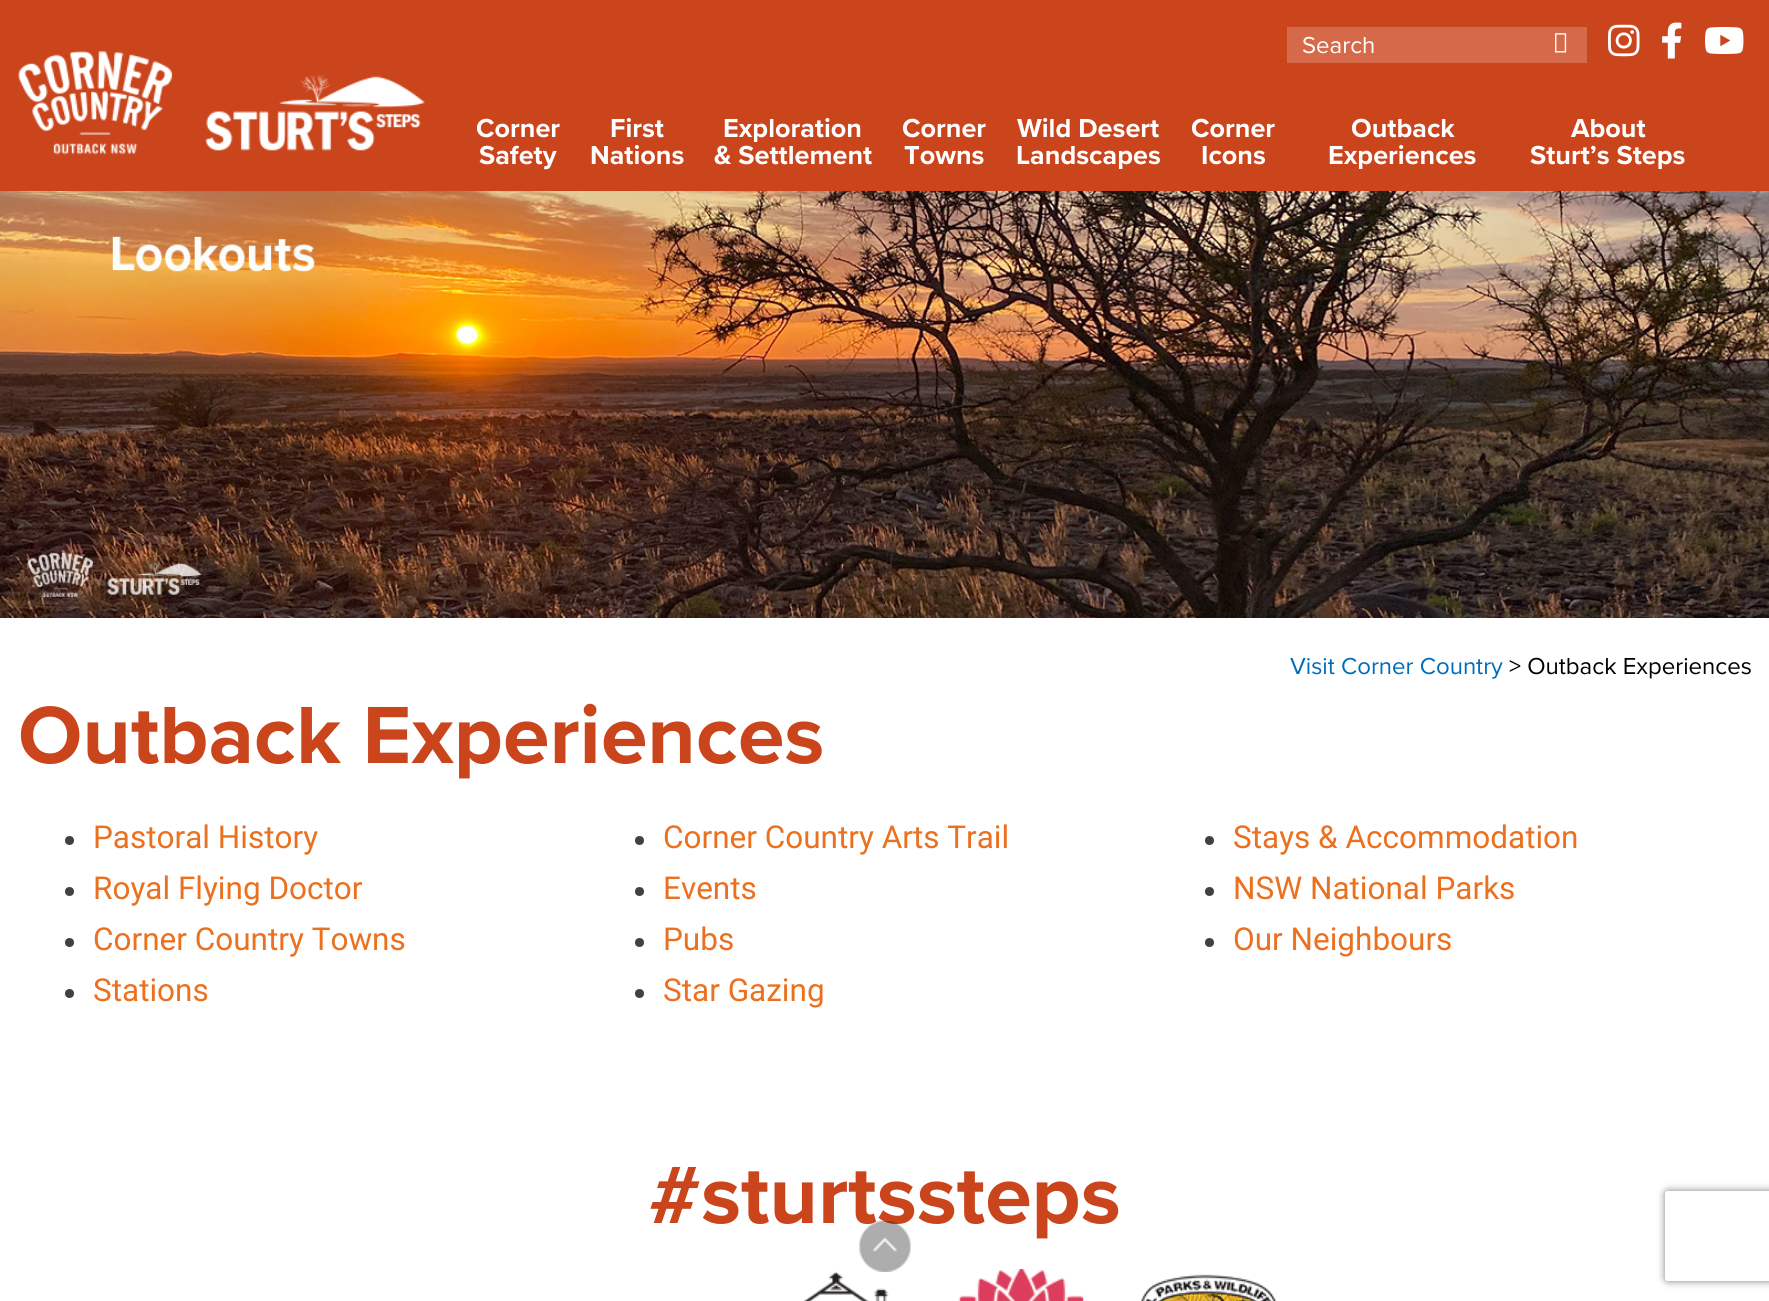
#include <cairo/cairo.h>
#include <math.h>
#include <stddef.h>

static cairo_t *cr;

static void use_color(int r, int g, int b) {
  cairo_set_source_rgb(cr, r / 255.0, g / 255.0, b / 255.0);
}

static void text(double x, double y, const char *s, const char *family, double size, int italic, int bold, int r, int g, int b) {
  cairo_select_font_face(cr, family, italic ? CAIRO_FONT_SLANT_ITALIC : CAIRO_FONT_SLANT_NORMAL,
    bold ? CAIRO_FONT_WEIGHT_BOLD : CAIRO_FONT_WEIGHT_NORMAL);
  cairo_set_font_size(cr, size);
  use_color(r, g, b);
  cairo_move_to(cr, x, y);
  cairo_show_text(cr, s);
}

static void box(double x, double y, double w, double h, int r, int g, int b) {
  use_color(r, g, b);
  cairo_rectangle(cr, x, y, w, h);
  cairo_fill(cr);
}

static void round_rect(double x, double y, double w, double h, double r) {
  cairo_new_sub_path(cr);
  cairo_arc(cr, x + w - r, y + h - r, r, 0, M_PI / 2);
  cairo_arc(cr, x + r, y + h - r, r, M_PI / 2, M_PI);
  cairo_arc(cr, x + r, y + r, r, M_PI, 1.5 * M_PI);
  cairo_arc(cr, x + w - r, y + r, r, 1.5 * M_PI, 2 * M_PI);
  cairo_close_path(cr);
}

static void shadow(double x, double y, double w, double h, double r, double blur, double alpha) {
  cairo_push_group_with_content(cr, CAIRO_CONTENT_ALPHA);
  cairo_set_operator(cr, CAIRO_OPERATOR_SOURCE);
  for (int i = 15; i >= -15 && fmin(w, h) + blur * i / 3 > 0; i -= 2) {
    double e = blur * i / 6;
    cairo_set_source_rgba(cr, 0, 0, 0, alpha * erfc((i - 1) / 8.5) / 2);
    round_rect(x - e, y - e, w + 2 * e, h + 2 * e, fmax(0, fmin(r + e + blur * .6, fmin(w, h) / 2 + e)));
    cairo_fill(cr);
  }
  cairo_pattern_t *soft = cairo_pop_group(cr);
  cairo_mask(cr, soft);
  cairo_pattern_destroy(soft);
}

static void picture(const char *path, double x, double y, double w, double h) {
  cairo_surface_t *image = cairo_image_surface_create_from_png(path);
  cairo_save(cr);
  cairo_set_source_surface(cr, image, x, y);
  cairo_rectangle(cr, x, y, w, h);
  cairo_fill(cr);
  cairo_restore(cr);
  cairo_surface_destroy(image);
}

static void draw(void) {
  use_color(255, 255, 255);
  cairo_paint(cr);
  box(0, 0, 1769, 191, 202, 68, 28);
  picture("img_01.png", 18, 51, 407, 104);
  box(1287, 27, 300, 36, 213, 105, 73);
  picture("img_02.png", 1555, 33, 12, 20);
  picture("img_03.png", 1608, 24, 32, 33);
  picture("img_04.png", 1662, 22, 20, 37);
  picture("img_05.png", 1705, 27, 39, 27);
  picture("img_06.png", 0, 191, 1769, 427);
  use_color(65, 65, 65);
  cairo_arc(cr, 69.5, 840.5, 4.5, 0, 2 * M_PI);
  cairo_fill(cr);
  cairo_arc(cr, 69.5, 891.5, 4.5, 0, 2 * M_PI);
  cairo_fill(cr);
  cairo_arc(cr, 69.5, 942.5, 4.5, 0, 2 * M_PI);
  cairo_fill(cr);
  cairo_arc(cr, 69.5, 993.5, 4.5, 0, 2 * M_PI);
  cairo_fill(cr);
  cairo_arc(cr, 639.5, 840.5, 4.5, 0, 2 * M_PI);
  cairo_fill(cr);
  cairo_arc(cr, 639.5, 891.5, 4.5, 0, 2 * M_PI);
  cairo_fill(cr);
  cairo_arc(cr, 639.5, 942.5, 4.5, 0, 2 * M_PI);
  cairo_fill(cr);
  cairo_arc(cr, 639.5, 993.5, 4.5, 0, 2 * M_PI);
  cairo_fill(cr);
  cairo_arc(cr, 1209.5, 840.5, 4.5, 0, 2 * M_PI);
  cairo_fill(cr);
  cairo_arc(cr, 1209.5, 891.5, 4.5, 0, 2 * M_PI);
  cairo_fill(cr);
  cairo_arc(cr, 1209.5, 942.5, 4.5, 0, 2 * M_PI);
  cairo_fill(cr);
  picture("img_07.png", 803, 1271, 86, 30);
  picture("img_08.png", 958, 1269, 127, 32);
  picture("img_09.png", 1141, 1274, 136, 27);
  cairo_save(cr);
  cairo_set_fill_rule(cr, CAIRO_FILL_RULE_EVEN_ODD);
  cairo_new_path(cr);
  cairo_move_to(cr, 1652, 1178);
  cairo_line_to(cr, 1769, 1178);
  cairo_line_to(cr, 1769, 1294);
  cairo_line_to(cr, 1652, 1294);
  cairo_close_path(cr);
  cairo_move_to(cr, 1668, 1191);
  cairo_line_to(cr, 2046, 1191);
  cairo_curve_to(cr, 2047.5, 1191, 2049, 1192.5, 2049, 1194);
  cairo_line_to(cr, 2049, 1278);
  cairo_curve_to(cr, 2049, 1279.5, 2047.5, 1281, 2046, 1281);
  cairo_line_to(cr, 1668, 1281);
  cairo_curve_to(cr, 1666.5, 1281, 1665, 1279.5, 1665, 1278);
  cairo_line_to(cr, 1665, 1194);
  cairo_curve_to(cr, 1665, 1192.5, 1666.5, 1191, 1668, 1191);
  cairo_close_path(cr);
  cairo_clip(cr);
  use_color(128, 128, 128);
  shadow(1665, 1191, 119, 90, 3, 4, 1);
  cairo_restore(cr);
  text(1302, 53, "Search", "Proxima Nova", 24, 0, 0, 255, 255, 255);
  text(476, 137, "Corner", "Proxima Nova", 27, 0, 1, 255, 255, 255);
  text(479, 164, "Safety", "Proxima Nova", 27, 0, 1, 255, 255, 255);
  text(610, 137, "First", "Proxima Nova", 27, 0, 1, 255, 255, 255);
  text(590, 164, "Nations", "Proxima Nova", 27, 0, 1, 255, 255, 255);
  text(723, 137, "Exploration", "Proxima Nova", 27, 0, 1, 255, 255, 255);
  text(714, 164, "& Settlement", "Proxima Nova", 27, 0, 1, 255, 255, 255);
  text(902, 137, "Corner", "Proxima Nova", 27, 0, 1, 255, 255, 255);
  text(904, 164, "Towns", "Proxima Nova", 27, 0, 1, 255, 255, 255);
  text(1017, 137, "Wild Desert", "Proxima Nova", 27, 0, 1, 255, 255, 255);
  text(1016, 164, "Landscapes", "Proxima Nova", 27, 0, 1, 255, 255, 255);
  text(1191, 137, "Corner", "Proxima Nova", 27, 0, 1, 255, 255, 255);
  text(1201, 164, "Icons", "Proxima Nova", 27, 0, 1, 255, 255, 255);
  text(1351, 137, "Outback", "Proxima Nova", 27, 0, 1, 255, 255, 255);
  text(1328, 164, "Experiences", "Proxima Nova", 27, 0, 1, 255, 255, 255);
  text(1571, 137, "About", "Proxima Nova", 27, 0, 1, 255, 255, 255);
  text(1530, 164, "Sturt’s Steps", "Proxima Nova", 27, 0, 1, 255, 255, 255);
  text(1290, 674, "Visit Corner Country", "Proxima Nova", 24, 0, 0, 0, 108, 184);
  text(1509, 674, "> Outback Experiences", "Proxima Nova", 24, 0, 0, 0, 0, 0);
  text(18, 763, "Outback Experiences", "Proxima Nova", 84, 0, 1, 202, 68, 28);
  text(93, 848, "Pastoral History", "Roboto", 31.5, 0, 0, 235, 112, 31);
  text(93, 899, "Royal Flying Doctor", "Roboto", 31.5, 0, 0, 235, 112, 31);
  text(93, 950, "Corner Country Towns", "Roboto", 31.5, 0, 0, 235, 112, 31);
  text(93, 1001, "Stations", "Roboto", 31.5, 0, 0, 235, 112, 31);
  text(663, 848, "Corner Country Arts Trail", "Roboto", 31.5, 0, 0, 235, 112, 31);
  text(663, 899, "Events", "Roboto", 31.5, 0, 0, 235, 112, 31);
  text(663, 950, "Pubs", "Roboto", 31.5, 0, 0, 235, 112, 31);
  text(663, 1001, "Star Gazing", "Roboto", 31.5, 0, 0, 235, 112, 31);
  text(1233, 848, "Stays & Accommodation", "Roboto", 31.5, 0, 0, 235, 112, 31);
  text(1233, 899, "NSW National Parks", "Roboto", 31.5, 0, 0, 235, 112, 31);
  text(1233, 950, "Our Neighbours", "Roboto", 31.5, 0, 0, 235, 112, 31);
  text(649, 1223, "#sturtssteps", "Proxima Nova", 84, 0, 1, 202, 68, 28);
  picture("img_10.png", 859, 1221, 52, 51);
}

int main(void) {
  cairo_surface_t *surface = cairo_image_surface_create(CAIRO_FORMAT_RGB24, 1769, 1301);
  cr = cairo_create(surface);
  cairo_font_options_t *options = cairo_font_options_create();
  cairo_font_options_set_hint_metrics(options, CAIRO_HINT_METRICS_OFF);
  cairo_font_options_set_hint_style(options, CAIRO_HINT_STYLE_NONE);
  cairo_set_font_options(cr, options);
  cairo_set_miter_limit(cr, 4);
  draw();
  cairo_surface_write_to_png(surface, "out.png");
  cairo_font_options_destroy(options);
  cairo_destroy(cr);
  cairo_surface_destroy(surface);
  return 0;
}
